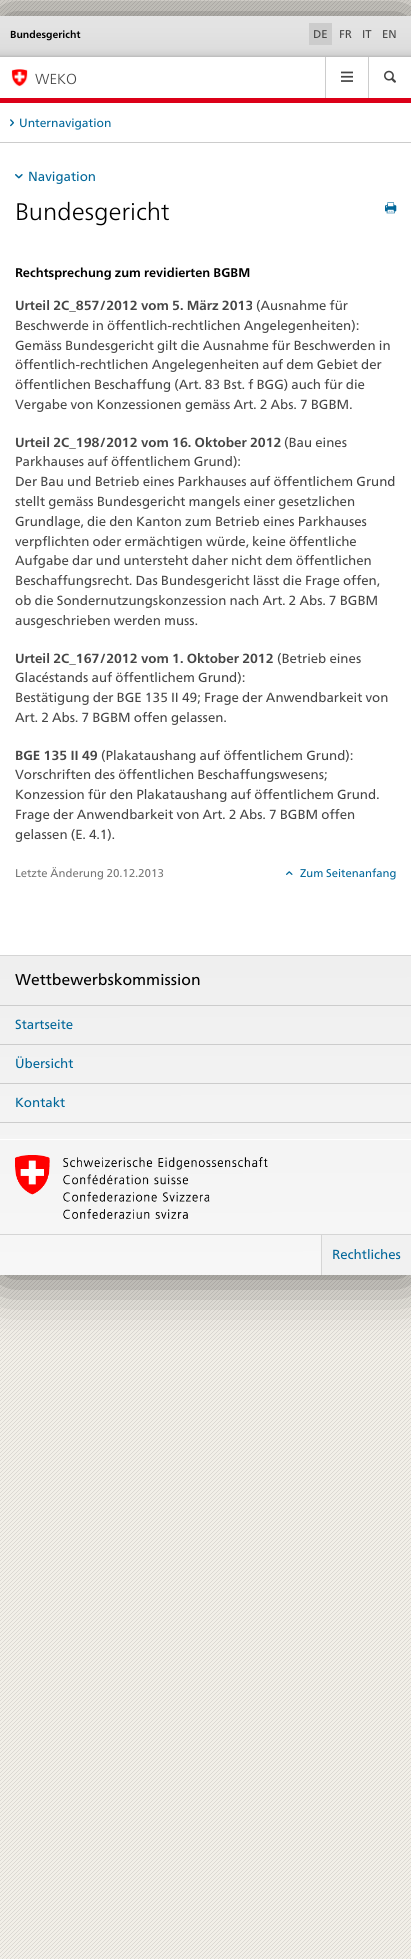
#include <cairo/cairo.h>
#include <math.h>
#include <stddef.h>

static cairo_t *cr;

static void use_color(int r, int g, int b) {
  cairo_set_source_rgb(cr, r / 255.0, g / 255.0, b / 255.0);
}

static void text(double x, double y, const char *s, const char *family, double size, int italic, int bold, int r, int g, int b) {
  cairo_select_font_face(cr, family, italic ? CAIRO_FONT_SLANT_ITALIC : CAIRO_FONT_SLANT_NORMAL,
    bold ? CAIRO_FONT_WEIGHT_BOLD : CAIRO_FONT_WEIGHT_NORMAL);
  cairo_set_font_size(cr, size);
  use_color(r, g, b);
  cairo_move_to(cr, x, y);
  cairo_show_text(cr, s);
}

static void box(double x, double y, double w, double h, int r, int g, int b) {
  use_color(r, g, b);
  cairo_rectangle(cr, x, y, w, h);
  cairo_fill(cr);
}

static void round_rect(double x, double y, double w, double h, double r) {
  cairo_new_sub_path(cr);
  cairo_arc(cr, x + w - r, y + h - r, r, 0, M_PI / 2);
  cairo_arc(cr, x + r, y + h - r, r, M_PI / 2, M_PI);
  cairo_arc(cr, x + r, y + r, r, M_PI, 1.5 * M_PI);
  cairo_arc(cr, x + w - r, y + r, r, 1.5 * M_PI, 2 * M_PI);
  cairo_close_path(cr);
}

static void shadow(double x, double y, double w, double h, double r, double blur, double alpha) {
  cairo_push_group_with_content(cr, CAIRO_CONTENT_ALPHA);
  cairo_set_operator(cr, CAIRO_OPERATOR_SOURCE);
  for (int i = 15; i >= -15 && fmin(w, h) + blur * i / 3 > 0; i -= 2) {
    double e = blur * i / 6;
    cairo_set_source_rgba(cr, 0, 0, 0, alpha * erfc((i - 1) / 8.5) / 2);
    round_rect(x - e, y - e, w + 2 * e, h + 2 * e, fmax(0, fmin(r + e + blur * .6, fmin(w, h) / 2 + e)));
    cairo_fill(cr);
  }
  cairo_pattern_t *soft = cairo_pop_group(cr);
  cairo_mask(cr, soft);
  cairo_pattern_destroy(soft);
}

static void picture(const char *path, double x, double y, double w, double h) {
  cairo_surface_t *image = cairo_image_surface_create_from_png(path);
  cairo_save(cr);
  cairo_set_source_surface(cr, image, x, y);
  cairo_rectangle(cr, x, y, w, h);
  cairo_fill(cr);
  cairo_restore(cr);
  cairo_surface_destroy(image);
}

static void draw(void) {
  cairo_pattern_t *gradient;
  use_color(255, 255, 255);
  cairo_paint(cr);
  picture("img_01.png", 0, 0, 411, 1959);
  use_color(0, 0, 0);
  shadow(0, 16, 411, 1259, 0, 30, 0.6);
  box(0, 57, 411, 898, 255, 255, 255);
  gradient = cairo_pattern_create_linear(206, 16, 206, 57);
  cairo_pattern_add_color_stop_rgba(gradient, 0, 0.894, 0.894, 0.894, 1);
  cairo_pattern_add_color_stop_rgba(gradient, 0.39, 0.886, 0.886, 0.886, 1);
  cairo_pattern_add_color_stop_rgba(gradient, 0.79, 0.867, 0.867, 0.867, 1);
  cairo_pattern_add_color_stop_rgba(gradient, 0.91, 0.835, 0.835, 0.835, 1);
  cairo_pattern_add_color_stop_rgba(gradient, 0.95, 0.812, 0.812, 0.812, 1);
  cairo_pattern_add_color_stop_rgba(gradient, 0.99, 0.745, 0.745, 0.745, 1);
  cairo_set_source(cr, gradient);
  cairo_pattern_destroy(gradient);
  cairo_rectangle(cr, 0, 16, 411, 41);
  cairo_fill(cr);
  box(309, 23, 23, 22, 204, 204, 204);
  box(0, 98, 411, 5, 220, 0, 24);
  picture("img_02.png", 11, 69, 17, 18);
  box(325, 57, 1, 41, 204, 204, 204);
  picture("img_03.png", 341, 71, 12, 11);
  box(368, 57, 1, 41, 204, 204, 204);
  picture("img_04.png", 384, 70, 12, 13);
  box(0, 142, 411, 1, 204, 204, 204);
  picture("img_05.png", 10, 119, 4, 8);
  picture("img_06.png", 15, 174, 8, 5);
  picture("img_07.png", 385, 202, 12, 12);
  picture("img_08.png", 286, 871, 7, 4);
  gradient = cairo_pattern_create_linear(205, 956, 206, 1275);
  cairo_pattern_add_color_stop_rgba(gradient, 0, 0.937, 0.937, 0.937, 1);
  cairo_pattern_add_color_stop_rgba(gradient, 1, 0.969, 0.969, 0.969, 1);
  cairo_set_source(cr, gradient);
  cairo_pattern_destroy(gradient);
  cairo_rectangle(cr, 0, 956, 411, 319);
  cairo_fill(cr);
  box(0, 955, 411, 1, 213, 213, 213);
  box(0, 1122, 411, 1, 204, 204, 204);
  box(0, 1005, 411, 1, 204, 204, 204);
  box(0, 1044, 411, 1, 204, 204, 204);
  box(0, 1083, 411, 1, 204, 204, 204);
  box(0, 1139, 411, 1, 255, 255, 255);
  picture("img_09.png", 15, 1155, 253, 64);
  box(0, 1234, 411, 1, 213, 213, 213);
  box(322, 1235, 89, 40, 241, 241, 241);
  box(321, 1235, 1, 40, 213, 213, 213);
  text(10, 38, "Bundesgericht", "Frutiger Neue", 10.25, 0, 1, 0, 0, 0);
  text(313, 38, "DE", "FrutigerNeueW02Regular", 11.25, 0, 0, 69, 69, 69);
  text(339, 38, "FR", "FrutigerNeueW02Regular", 11.25, 0, 0, 69, 69, 69);
  text(362, 38, "IT", "FrutigerNeueW02Regular", 11.25, 0, 0, 69, 69, 69);
  text(382, 38, "EN", "FrutigerNeueW02Regular", 11.25, 0, 0, 69, 69, 69);
  text(35, 84, "WEKO", "Frutiger Neue Light", 14.5, 0, 0, 69, 69, 69);
  text(19, 127, "Unternavigation", "FrutigerNeueW02Regular", 12, 0, 0, 0, 102, 153);
  text(28, 181, "Navigation", "FrutigerNeueW02Regular", 13.2, 0, 0, 0, 102, 153);
  text(15, 220, "Bundesgericht", "Frutiger Neue Light", 24, 0, 0, 0, 0, 0);
  text(15, 277, "Rechtsprechung zum revidierten BGBM", "Frutiger Neue", 12.6, 0, 1, 0, 0, 0);
  text(15, 310, "Urteil 2C_857/2012 vom 5. März 2013", "Frutiger Neue", 13.2, 0, 1, 69, 69, 69);
  text(256, 310, "(Ausnahme für", "FrutigerNeueW02Regular", 13.2, 0, 0, 69, 69, 69);
  text(15, 330, "Beschwerde in öffentlich-rechtlichen Angelegenheiten):", "FrutigerNeueW02Regular", 13.2, 0, 0, 69, 69, 69);
  text(15, 350, "Gemäss Bundesgericht gilt die Ausnahme für Beschwerden in", "FrutigerNeueW02Regular", 13.2, 0, 0, 69, 69, 69);
  text(15, 369, "öffentlich-rechtlichen Angelegenheiten auf dem Gebiet der", "FrutigerNeueW02Regular", 13.2, 0, 0, 69, 69, 69);
  text(15, 389, "öffentlichen Beschaffung (Art. 83 Bst. f BGG) auch für die", "FrutigerNeueW02Regular", 13.2, 0, 0, 69, 69, 69);
  text(15, 409, "Vergabe von Konzessionen gemäss Art. 2 Abs. 7 BGBM.", "FrutigerNeueW02Regular", 13.2, 0, 0, 69, 69, 69);
  text(15, 447, "Urteil 2C_198/2012 vom 16. Oktober 2012", "Frutiger Neue", 13.2, 0, 1, 69, 69, 69);
  text(284, 447, "(Bau eines", "FrutigerNeueW02Regular", 13.2, 0, 0, 69, 69, 69);
  text(15, 466, "Parkhauses auf öffentlichem Grund):", "FrutigerNeueW02Regular", 13.2, 0, 0, 69, 69, 69);
  text(15, 486, "Der Bau und Betrieb eines Parkhauses auf öffentlichem Grund", "FrutigerNeueW02Regular", 13.2, 0, 0, 69, 69, 69);
  text(15, 506, "stellt gemäss Bundesgericht mangels einer gesetzlichen", "FrutigerNeueW02Regular", 13.2, 0, 0, 69, 69, 69);
  text(15, 526, "Grundlage, die den Kanton zum Betrieb eines Parkhauses", "FrutigerNeueW02Regular", 13.2, 0, 0, 69, 69, 69);
  text(15, 546, "verpflichten oder ermächtigen würde, keine öffentliche", "FrutigerNeueW02Regular", 13.2, 0, 0, 69, 69, 69);
  text(15, 565, "Aufgabe dar und untersteht daher nicht dem öffentlichen", "FrutigerNeueW02Regular", 13.2, 0, 0, 69, 69, 69);
  text(15, 585, "Beschaffungsrecht. Das Bundesgericht lässt die Frage offen,", "FrutigerNeueW02Regular", 13.2, 0, 0, 69, 69, 69);
  text(15, 605, "ob die Sondernutzungskonzession nach Art. 2 Abs. 7 BGBM", "FrutigerNeueW02Regular", 13.2, 0, 0, 69, 69, 69);
  text(15, 625, "ausgeschrieben werden muss.", "FrutigerNeueW02Regular", 13.2, 0, 0, 69, 69, 69);
  text(15, 663, "Urteil 2C_167/2012 vom 1. Oktober 2012", "Frutiger Neue", 13.2, 0, 1, 69, 69, 69);
  text(277, 663, "(Betrieb eines", "FrutigerNeueW02Regular", 13.2, 0, 0, 69, 69, 69);
  text(15, 682, "Glacéstands auf öffentlichem Grund):", "FrutigerNeueW02Regular", 13.2, 0, 0, 69, 69, 69);
  text(15, 702, "Bestätigung der BGE 135 II 49; Frage der Anwendbarkeit von", "FrutigerNeueW02Regular", 13.2, 0, 0, 69, 69, 69);
  text(15, 722, "Art. 2 Abs. 7 BGBM offen gelassen.", "FrutigerNeueW02Regular", 13.2, 0, 0, 69, 69, 69);
  text(15, 760, "BGE 135 II 49", "Frutiger Neue", 13.2, 0, 1, 69, 69, 69);
  text(101, 760, "(Plakataushang auf öffentlichem Grund):", "FrutigerNeueW02Regular", 13.2, 0, 0, 69, 69, 69);
  text(15, 779, "Vorschriften des öffentlichen Beschaffungswesens;", "FrutigerNeueW02Regular", 13.2, 0, 0, 69, 69, 69);
  text(15, 799, "Konzession für den Plakataushang auf öffentlichem Grund.", "FrutigerNeueW02Regular", 13.2, 0, 0, 69, 69, 69);
  text(15, 819, "Frage der Anwendbarkeit von Art. 2 Abs. 7 BGBM offen", "FrutigerNeueW02Regular", 13.2, 0, 0, 69, 69, 69);
  text(15, 839, "gelassen (E. 4.1).", "FrutigerNeueW02Regular", 13.2, 0, 0, 69, 69, 69);
  text(15, 877, "Letzte Änderung 20.12.2013", "FrutigerNeueW02Regular", 11.25, 0, 0, 117, 117, 117);
  text(300, 877, "Zum Seitenanfang", "FrutigerNeueW02Regular", 11.25, 0, 0, 0, 102, 153);
  text(15, 985, "Wettbewerbskommission", "FrutigerNeueW02Regular", 15.6, 0, 0, 0, 0, 0);
  text(15, 1029, "Startseite", "FrutigerNeueW02Regular", 13.2, 0, 0, 0, 102, 153);
  text(15, 1068, "Übersicht", "FrutigerNeueW02Regular", 13.2, 0, 0, 0, 102, 153);
  text(15, 1107, "Kontakt", "FrutigerNeueW02Regular", 13.2, 0, 0, 0, 102, 153);
  text(332, 1259, "Rechtliches", "FrutigerNeueW02Regular", 13.2, 0, 0, 0, 102, 153);
}

int main(void) {
  cairo_surface_t *surface = cairo_image_surface_create(CAIRO_FORMAT_RGB24, 411, 1959);
  cr = cairo_create(surface);
  cairo_font_options_t *options = cairo_font_options_create();
  cairo_font_options_set_hint_metrics(options, CAIRO_HINT_METRICS_OFF);
  cairo_font_options_set_hint_style(options, CAIRO_HINT_STYLE_NONE);
  cairo_set_font_options(cr, options);
  cairo_set_miter_limit(cr, 4);
  draw();
  cairo_surface_write_to_png(surface, "out.png");
  cairo_font_options_destroy(options);
  cairo_destroy(cr);
  cairo_surface_destroy(surface);
  return 0;
}
